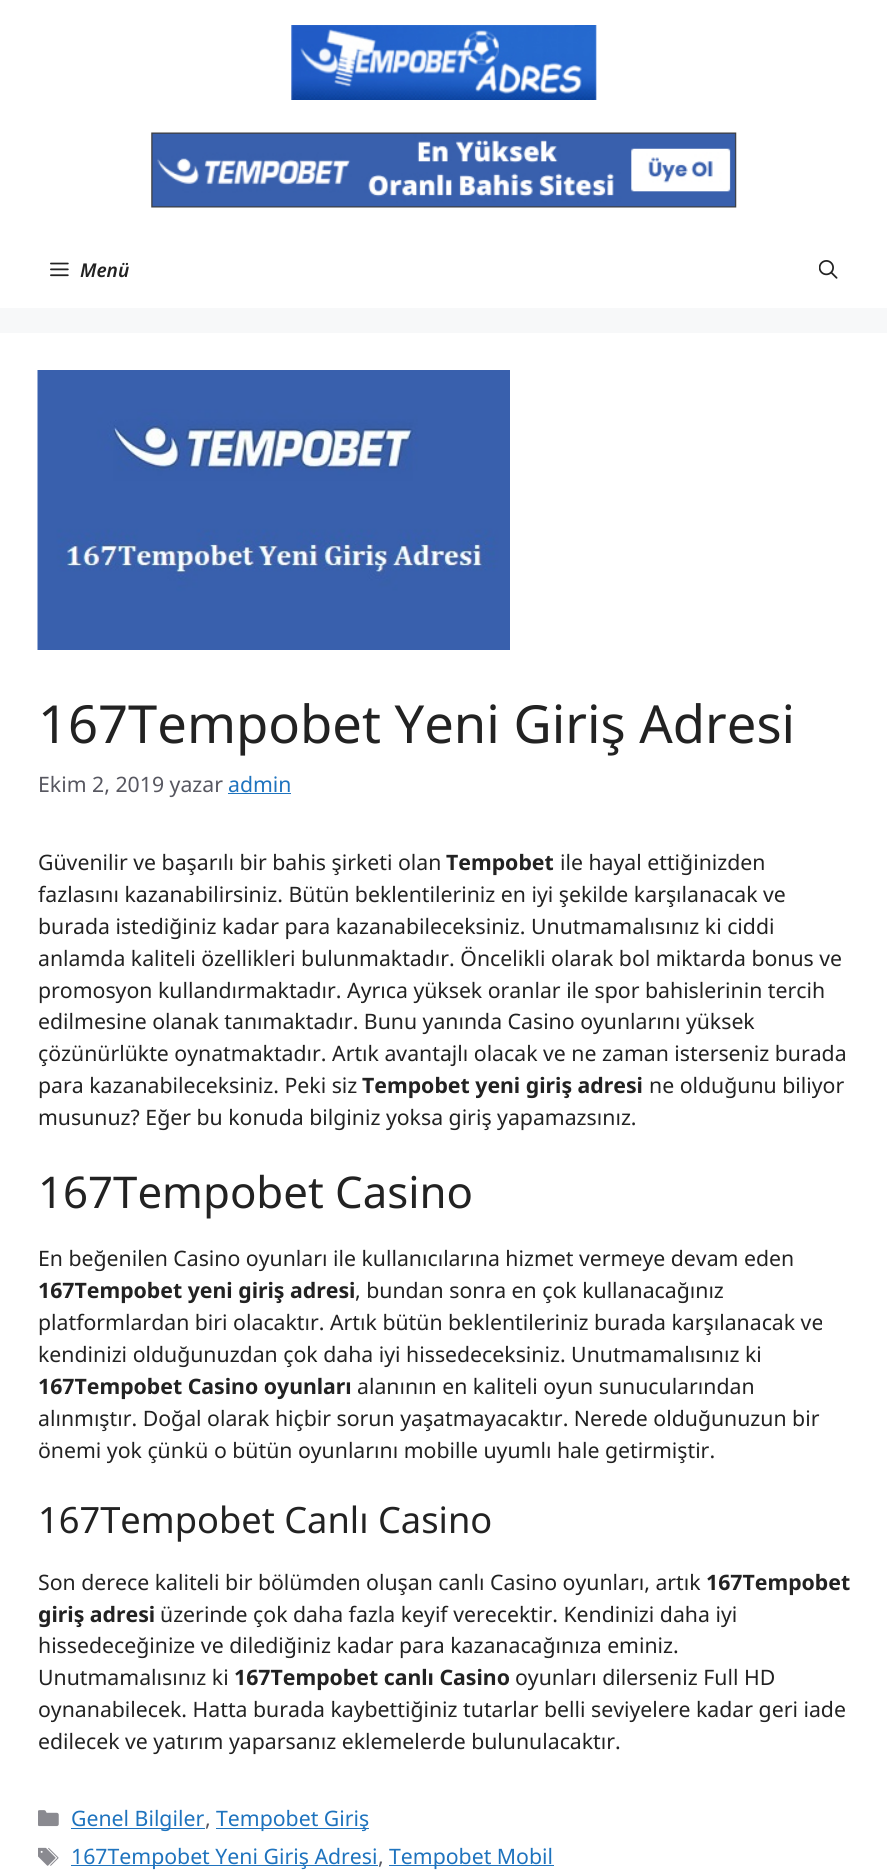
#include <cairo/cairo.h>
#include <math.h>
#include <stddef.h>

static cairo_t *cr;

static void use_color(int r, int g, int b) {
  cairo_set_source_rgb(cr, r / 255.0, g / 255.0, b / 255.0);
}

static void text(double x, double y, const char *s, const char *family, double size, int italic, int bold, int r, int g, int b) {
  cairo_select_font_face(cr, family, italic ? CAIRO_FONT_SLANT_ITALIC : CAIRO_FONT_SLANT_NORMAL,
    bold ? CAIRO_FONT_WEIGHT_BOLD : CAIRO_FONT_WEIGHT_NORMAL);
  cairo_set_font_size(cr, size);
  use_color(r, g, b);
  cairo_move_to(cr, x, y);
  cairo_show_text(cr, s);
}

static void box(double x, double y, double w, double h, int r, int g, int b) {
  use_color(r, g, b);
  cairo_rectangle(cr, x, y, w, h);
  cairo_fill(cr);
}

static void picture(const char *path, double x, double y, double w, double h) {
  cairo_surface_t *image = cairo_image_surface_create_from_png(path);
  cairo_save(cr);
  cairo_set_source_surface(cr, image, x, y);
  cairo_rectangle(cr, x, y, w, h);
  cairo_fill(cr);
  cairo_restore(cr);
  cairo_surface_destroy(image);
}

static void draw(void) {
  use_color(247, 248, 249);
  cairo_paint(cr);
  box(0, 0, 887, 308, 255, 255, 255);
  picture("img_01.png", 291, 25, 306, 75);
  picture("img_02.png", 151, 132, 586, 76);
  picture("img_03.png", 50, 262, 19, 15);
  picture("img_04.png", 819, 260, 19, 19);
  box(0, 333, 887, 1539, 255, 255, 255);
  picture("img_05.png", 37, 370, 473, 280);
  box(228, 793, 63, 1, 30, 115, 190);
  picture("img_06.png", 38, 1810, 21, 17);
  box(71, 1828, 134, 1, 30, 115, 190);
  box(216, 1828, 153, 1, 30, 115, 190);
  picture("img_07.png", 38, 1847, 21, 19);
  box(71, 1865, 307, 1, 30, 115, 190);
  box(389, 1865, 165, 1, 30, 115, 190);
  text(80, 277, "Menü", "Noto Sans SemiBold", 19, 1, 0, 34, 34, 34);
  text(38, 743, "167Tempobet Yeni Giriş Adresi", "Noto Sans", 52.5, 0, 0, 34, 34, 34);
  text(38, 792, "Ekim 2, 2019 yazar", "Noto Sans", 21.25, 0, 0, 87, 87, 96);
  text(228, 792, "admin", "Noto Sans", 21.25, 0, 0, 30, 115, 190);
  text(38, 870, "Güvenilir ve başarılı bir bahis şirketi olan", "Noto Sans", 21.25, 0, 0, 34, 34, 34);
  text(446, 870, "Tempobet", "Noto Sans", 21.25, 0, 1, 34, 34, 34);
  text(560, 870, "ile hayal ettiğinizden", "Noto Sans", 21.25, 0, 0, 34, 34, 34);
  text(38, 902, "fazlasını kazanabilirsiniz. Bütün beklentileriniz en iyi şekilde karşılanacak ve", "Noto Sans", 21.25, 0, 0, 34, 34, 34);
  text(38, 934, "burada istediğiniz kadar para kazanabileceksiniz. Unutmamalısınız ki ciddi", "Noto Sans", 21.25, 0, 0, 34, 34, 34);
  text(38, 966, "anlamda kaliteli özellikleri bulunmaktadır. Öncelikli olarak bol miktarda bonus ve", "Noto Sans", 21.25, 0, 0, 34, 34, 34);
  text(38, 998, "promosyon kullandırmaktadır. Ayrıca yüksek oranlar ile spor bahislerinin tercih", "Noto Sans", 21.25, 0, 0, 34, 34, 34);
  text(38, 1029, "edilmesine olanak tanımaktadır. Bunu yanında Casino oyunlarını yüksek", "Noto Sans", 21.25, 0, 0, 34, 34, 34);
  text(38, 1061, "çözünürlükte oynatmaktadır. Artık avantajlı olacak ve ne zaman isterseniz burada", "Noto Sans", 21.25, 0, 0, 34, 34, 34);
  text(38, 1093, "para kazanabileceksiniz. Peki siz", "Noto Sans", 21.25, 0, 0, 34, 34, 34);
  text(362, 1093, "Tempobet yeni giriş adresi", "Noto Sans", 21.25, 0, 1, 34, 34, 34);
  text(649, 1093, "ne olduğunu biliyor", "Noto Sans", 21.25, 0, 0, 34, 34, 34);
  text(38, 1125, "musunuz? Eğer bu konuda bilginiz yoksa giriş yapamazsınız.", "Noto Sans", 21.25, 0, 0, 34, 34, 34);
  text(38, 1208, "167Tempobet Casino", "Noto Sans", 43.75, 0, 0, 34, 34, 34);
  text(38, 1266, "En beğenilen Casino oyunları ile kullanıcılarına hizmet vermeye devam eden", "Noto Sans", 21.25, 0, 0, 34, 34, 34);
  text(38, 1298, "167Tempobet yeni giriş adresi", "Noto Sans", 21.25, 0, 1, 34, 34, 34);
  text(355, 1298, ", bundan sonra en çok kullanacağınız", "Noto Sans", 21.25, 0, 0, 34, 34, 34);
  text(38, 1330, "platformlardan biri olacaktır. Artık bütün beklentileriniz burada karşılanacak ve", "Noto Sans", 21.25, 0, 0, 34, 34, 34);
  text(38, 1362, "kendinizi olduğunuzdan çok daha iyi hissedeceksiniz. Unutmamalısınız ki", "Noto Sans", 21.25, 0, 0, 34, 34, 34);
  text(38, 1394, "167Tempobet Casino oyunları", "Noto Sans", 21.25, 0, 1, 34, 34, 34);
  text(357, 1394, "alanının en kaliteli oyun sunucularından", "Noto Sans", 21.25, 0, 0, 34, 34, 34);
  text(38, 1426, "alınmıştır. Doğal olarak hiçbir sorun yaşatmayacaktır. Nerede olduğunuzun bir", "Noto Sans", 21.25, 0, 0, 34, 34, 34);
  text(38, 1458, "önemi yok çünkü o bütün oyunlarını mobille uyumlı hale getirmiştir.", "Noto Sans", 21.25, 0, 0, 34, 34, 34);
  text(38, 1533, "167Tempobet Canlı Casino", "Noto Sans", 36.25, 0, 0, 34, 34, 34);
  text(38, 1590, "Son derece kaliteli bir bölümden oluşan canlı Casino oyunları, artık", "Noto Sans", 21.25, 0, 0, 34, 34, 34);
  text(706, 1590, "167Tempobet", "Noto Sans", 21.25, 0, 1, 34, 34, 34);
  text(38, 1622, "giriş adresi", "Noto Sans", 21.25, 0, 1, 34, 34, 34);
  text(160, 1622, "üzerinde çok daha fazla keyif verecektir. Kendinizi daha iyi", "Noto Sans", 21.25, 0, 0, 34, 34, 34);
  text(38, 1653, "hissedeceğinize ve dilediğiniz kadar para kazanacağınıza eminiz.", "Noto Sans", 21.25, 0, 0, 34, 34, 34);
  text(38, 1685, "Unutmamalısınız ki", "Noto Sans", 21.25, 0, 0, 34, 34, 34);
  text(234, 1685, "167Tempobet canlı Casino", "Noto Sans", 21.25, 0, 1, 34, 34, 34);
  text(515, 1685, "oyunları dilerseniz Full HD", "Noto Sans", 21.25, 0, 0, 34, 34, 34);
  text(38, 1717, "oynanabilecek. Hatta burada kaybettiğiniz tutarlar belli seviyelere kadar geri iade", "Noto Sans", 21.25, 0, 0, 34, 34, 34);
  text(38, 1749, "edilecek ve yatırım yaparsanız eklemelerde bulunulacaktır.", "Noto Sans", 21.25, 0, 0, 34, 34, 34);
  text(71, 1826, "Genel Bilgiler", "Noto Sans", 21.25, 0, 0, 30, 115, 190);
  text(205, 1826, ",", "Noto Sans", 21.25, 0, 0, 87, 87, 96);
  text(216, 1826, "Tempobet Giriş", "Noto Sans", 21.25, 0, 0, 30, 115, 190);
  text(71, 1864, "167Tempobet Yeni Giriş Adresi", "Noto Sans", 21.25, 0, 0, 30, 115, 190);
  text(378, 1864, ",", "Noto Sans", 21.25, 0, 0, 87, 87, 96);
  text(389, 1864, "Tempobet Mobil", "Noto Sans", 21.25, 0, 0, 30, 115, 190);
}

int main(void) {
  cairo_surface_t *surface = cairo_image_surface_create(CAIRO_FORMAT_RGB24, 887, 1872);
  cr = cairo_create(surface);
  cairo_font_options_t *options = cairo_font_options_create();
  cairo_font_options_set_hint_metrics(options, CAIRO_HINT_METRICS_OFF);
  cairo_font_options_set_hint_style(options, CAIRO_HINT_STYLE_NONE);
  cairo_set_font_options(cr, options);
  cairo_set_miter_limit(cr, 4);
  draw();
  cairo_surface_write_to_png(surface, "out.png");
  cairo_font_options_destroy(options);
  cairo_destroy(cr);
  cairo_surface_destroy(surface);
  return 0;
}
